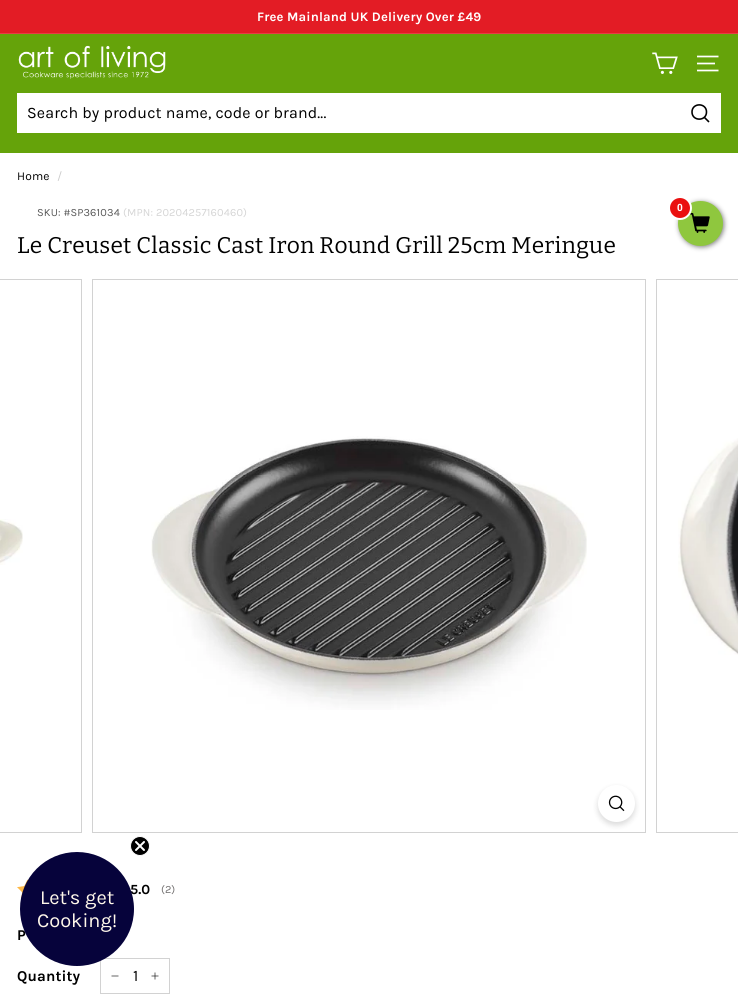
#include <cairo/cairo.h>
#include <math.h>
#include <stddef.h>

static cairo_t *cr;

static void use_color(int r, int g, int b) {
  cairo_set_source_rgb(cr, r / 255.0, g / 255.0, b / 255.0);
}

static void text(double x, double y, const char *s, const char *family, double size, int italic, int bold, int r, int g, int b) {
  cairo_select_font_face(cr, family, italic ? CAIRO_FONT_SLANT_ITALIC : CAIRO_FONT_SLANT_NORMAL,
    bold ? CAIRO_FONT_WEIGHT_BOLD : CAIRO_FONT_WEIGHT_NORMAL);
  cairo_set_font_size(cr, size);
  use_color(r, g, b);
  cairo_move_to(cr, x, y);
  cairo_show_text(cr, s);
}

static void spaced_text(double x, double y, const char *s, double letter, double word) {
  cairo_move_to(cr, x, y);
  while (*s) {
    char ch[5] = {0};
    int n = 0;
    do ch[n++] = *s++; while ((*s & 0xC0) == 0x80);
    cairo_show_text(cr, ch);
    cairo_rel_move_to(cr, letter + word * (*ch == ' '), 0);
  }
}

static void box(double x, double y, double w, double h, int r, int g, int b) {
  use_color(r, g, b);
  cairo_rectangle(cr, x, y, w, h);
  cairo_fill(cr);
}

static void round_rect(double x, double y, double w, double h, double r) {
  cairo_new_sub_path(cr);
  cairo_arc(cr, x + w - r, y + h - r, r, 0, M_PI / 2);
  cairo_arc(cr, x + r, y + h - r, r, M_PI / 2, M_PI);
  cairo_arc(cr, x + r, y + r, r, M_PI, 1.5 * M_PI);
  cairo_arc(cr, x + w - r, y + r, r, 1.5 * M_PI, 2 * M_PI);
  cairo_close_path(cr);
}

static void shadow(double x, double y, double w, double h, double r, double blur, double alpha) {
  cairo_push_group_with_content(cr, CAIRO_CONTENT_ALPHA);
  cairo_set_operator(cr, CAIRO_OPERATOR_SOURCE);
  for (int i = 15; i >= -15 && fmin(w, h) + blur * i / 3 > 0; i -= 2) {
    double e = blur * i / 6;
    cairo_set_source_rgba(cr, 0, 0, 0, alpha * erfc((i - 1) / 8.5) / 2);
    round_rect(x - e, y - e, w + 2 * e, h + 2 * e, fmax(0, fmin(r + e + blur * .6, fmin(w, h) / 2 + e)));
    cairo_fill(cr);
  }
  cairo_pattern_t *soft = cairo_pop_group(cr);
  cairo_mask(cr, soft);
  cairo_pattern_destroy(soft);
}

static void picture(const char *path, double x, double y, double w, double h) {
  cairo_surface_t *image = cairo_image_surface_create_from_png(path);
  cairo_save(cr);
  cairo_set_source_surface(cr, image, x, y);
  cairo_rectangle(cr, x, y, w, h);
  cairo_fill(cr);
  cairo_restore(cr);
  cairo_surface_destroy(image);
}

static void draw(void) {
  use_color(255, 255, 255);
  cairo_paint(cr);
  box(0, 0, 738, 33, 227, 28, 37);
  box(0, 33, 738, 1, 231, 62, 70);
  box(0, 34, 738, 119, 101, 163, 10);
  picture("img_01.png", 18, 45, 148, 34);
  picture("img_02.png", 652, 52, 26, 22);
  cairo_new_path(cr);
  cairo_move_to(cr, 697, 56.5);
  cairo_line_to(cr, 718.5, 56.5);
  cairo_move_to(cr, 697, 63.5);
  cairo_line_to(cr, 715, 63.5);
  cairo_move_to(cr, 697, 70.5);
  cairo_line_to(cr, 718.5, 70.5);
  use_color(255, 255, 255);
  cairo_set_line_width(cr, 1.7);
  cairo_stroke(cr);
  box(17, 93, 704, 40, 255, 255, 255);
  cairo_new_path(cr);
  cairo_move_to(cr, 706.5, 112);
  cairo_curve_to(cr, 706.5, 121.5, 692, 121.5, 692, 112);
  cairo_curve_to(cr, 692, 102.5, 706.5, 102.5, 706.5, 112);
  cairo_close_path(cr);
  cairo_move_to(cr, 709, 122);
  cairo_line_to(cr, 704.5, 117.5);
  use_color(0, 0, 0);
  cairo_set_line_width(cr, 1.6);
  cairo_stroke(cr);
  cairo_rectangle(cr, -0.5, 279.5, 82, 553);
  use_color(210, 210, 210);
  cairo_set_line_width(cr, 1);
  cairo_stroke(cr);
  picture("img_03.png", 0, 519, 23, 46);
  cairo_rectangle(cr, 92.5, 279.5, 553, 553);
  cairo_stroke(cr);
  picture("img_04.png", 151, 436, 436, 274);
  use_color(0, 0, 0);
  shadow(598, 788, 37, 37, 18.5, 3, 0.15);
  use_color(255, 255, 255);
  cairo_arc(cr, 616.5, 803.5, 18.5, 0, 2 * M_PI);
  cairo_fill(cr);
  picture("img_05.png", 608, 795, 17, 17);
  cairo_rectangle(cr, 656.5, 279.5, 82, 553);
  use_color(210, 210, 210);
  cairo_stroke(cr);
  picture("img_06.png", 678, 438, 60, 217);
  picture("img_07.png", 17, 879, 11, 20);
  cairo_rectangle(cr, 100.5, 958.5, 69, 35);
  cairo_stroke(cr);
  cairo_new_path(cr);
  cairo_move_to(cr, 118.5, 976);
  cairo_line_to(cr, 111.5, 976);
  cairo_move_to(cr, 155, 972.5);
  cairo_line_to(cr, 155, 979.5);
  cairo_move_to(cr, 158.5, 976);
  cairo_line_to(cr, 151.5, 976);
  use_color(0, 0, 0);
  cairo_set_line_width(cr, 0.6);
  cairo_stroke(cr);
  use_color(128, 128, 128);
  shadow(679, 202, 45, 45, 22.5, 2.5, 1);
  use_color(143, 199, 62);
  cairo_arc(cr, 700.5, 223.5, 22.5, 0, 2 * M_PI);
  cairo_fill(cr);
  picture("img_08.png", 690, 213, 20, 20);
  use_color(234, 16, 16);
  cairo_arc(cr, 680, 208, 11, 0, 2 * M_PI);
  cairo_fill_preserve(cr);
  use_color(255, 255, 255);
  cairo_set_line_width(cr, 2);
  cairo_stroke(cr);
  cairo_select_font_face(cr, "Karla", CAIRO_FONT_SLANT_NORMAL, CAIRO_FONT_WEIGHT_BOLD);
  cairo_set_font_size(cr, 13);
  spaced_text(257, 21, "Free Mainland UK Delivery Over £49", 0.15, 0);
  cairo_select_font_face(cr, "Karla", CAIRO_FONT_SLANT_NORMAL, CAIRO_FONT_WEIGHT_NORMAL);
  cairo_set_font_size(cr, 16);
  use_color(0, 0, 0);
  spaced_text(27, 118, "Search by product name, code or brand...", 0.15, 0);
  cairo_set_font_size(cr, 12);
  spaced_text(17, 180, "Home", 0.15, 0);
  use_color(204, 204, 204);
  spaced_text(57, 180, "/", 0.15, 0);
  cairo_set_font_size(cr, 11);
  use_color(89, 89, 89);
  spaced_text(37, 216, "SKU: #SP361034", 0.15, 0);
  use_color(213, 213, 213);
  spaced_text(123, 216, "(MPN: 20204257160460)", 0.15, 0);
  cairo_select_font_face(cr, "Bitter", CAIRO_FONT_SLANT_NORMAL, CAIRO_FONT_WEIGHT_NORMAL);
  cairo_set_font_size(cr, 22.7);
  use_color(0, 0, 0);
  spaced_text(17, 253, "Le Creuset Classic Cast Iron Round Grill 25cm Meringue", 0.23, 0);
  text(130, 894, "5.0", "Karla", 14, 0, 1, 0, 0, 0);
  text(161, 893, "(2)", "Karla", 11, 0, 0, 113, 111, 111);
  cairo_select_font_face(cr, "Karla", CAIRO_FONT_SLANT_NORMAL, CAIRO_FONT_WEIGHT_BOLD);
  cairo_set_font_size(cr, 15);
  use_color(0, 0, 0);
  spaced_text(17, 940, "P", 0.15, 0);
  spaced_text(17, 981, "Quantity", 0.15, 0);
  cairo_select_font_face(cr, "Karla", CAIRO_FONT_SLANT_NORMAL, CAIRO_FONT_WEIGHT_NORMAL);
  cairo_set_font_size(cr, 16);
  spaced_text(133, 981, "1", 0.15, 0);
  cairo_select_font_face(cr, "Roboto", CAIRO_FONT_SLANT_NORMAL, CAIRO_FONT_WEIGHT_BOLD);
  cairo_set_font_size(cr, 10);
  use_color(255, 255, 255);
  spaced_text(677, 211, "0", 0.15, 0);
  use_color(6, 3, 59);
  cairo_new_path(cr);
  cairo_arc(cr, 77, 909, 57, 0, 2 * M_PI);
  cairo_fill(cr);
  picture("img_09.png", 130, 836, 20, 20);
  text(40, 904, "Let's get", "Karla", 20, 0, 0, 255, 248, 234);
  text(37, 927, "Cooking!", "Karla", 20, 0, 0, 255, 248, 234);
}

int main(void) {
  cairo_surface_t *surface = cairo_image_surface_create(CAIRO_FORMAT_RGB24, 738, 1006);
  cr = cairo_create(surface);
  cairo_font_options_t *options = cairo_font_options_create();
  cairo_font_options_set_hint_metrics(options, CAIRO_HINT_METRICS_OFF);
  cairo_font_options_set_hint_style(options, CAIRO_HINT_STYLE_NONE);
  cairo_set_font_options(cr, options);
  cairo_set_miter_limit(cr, 4);
  draw();
  cairo_surface_write_to_png(surface, "out.png");
  cairo_font_options_destroy(options);
  cairo_destroy(cr);
  cairo_surface_destroy(surface);
  return 0;
}
